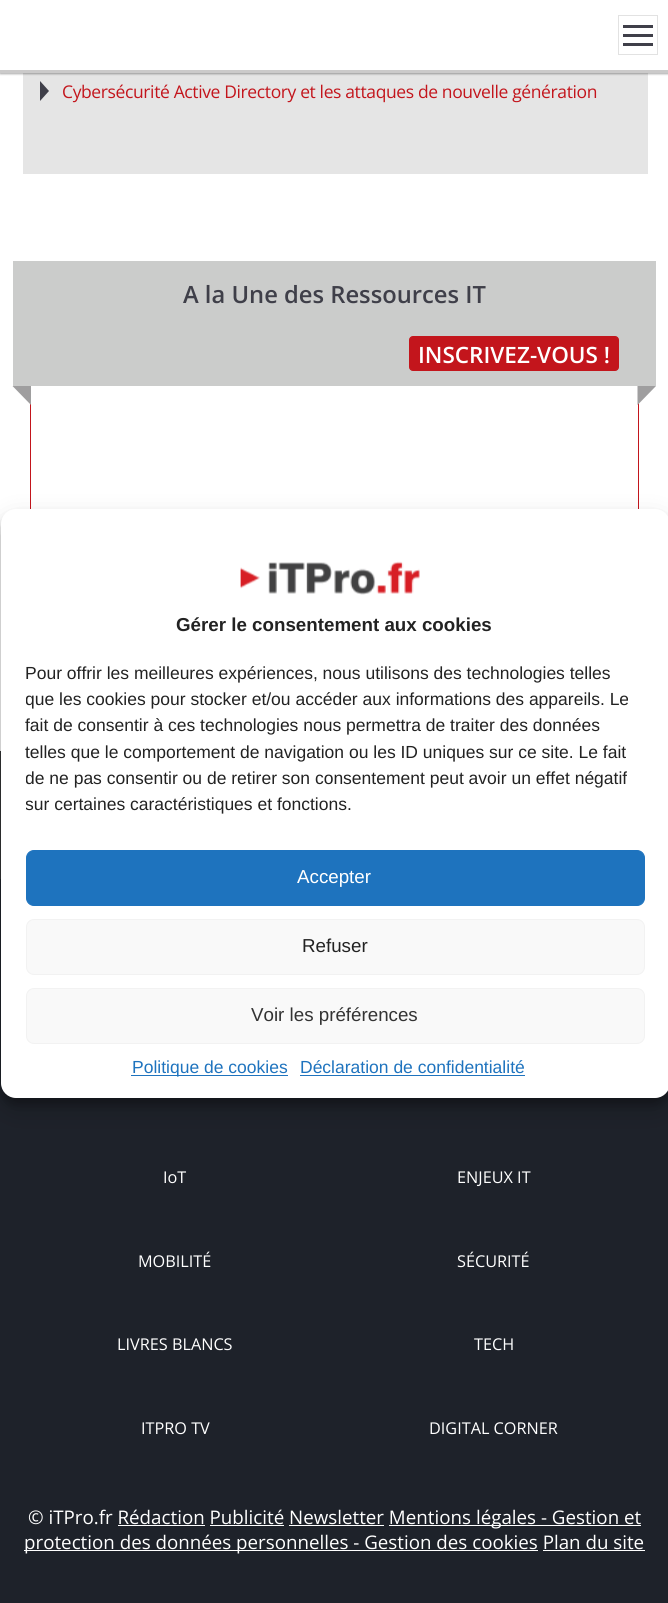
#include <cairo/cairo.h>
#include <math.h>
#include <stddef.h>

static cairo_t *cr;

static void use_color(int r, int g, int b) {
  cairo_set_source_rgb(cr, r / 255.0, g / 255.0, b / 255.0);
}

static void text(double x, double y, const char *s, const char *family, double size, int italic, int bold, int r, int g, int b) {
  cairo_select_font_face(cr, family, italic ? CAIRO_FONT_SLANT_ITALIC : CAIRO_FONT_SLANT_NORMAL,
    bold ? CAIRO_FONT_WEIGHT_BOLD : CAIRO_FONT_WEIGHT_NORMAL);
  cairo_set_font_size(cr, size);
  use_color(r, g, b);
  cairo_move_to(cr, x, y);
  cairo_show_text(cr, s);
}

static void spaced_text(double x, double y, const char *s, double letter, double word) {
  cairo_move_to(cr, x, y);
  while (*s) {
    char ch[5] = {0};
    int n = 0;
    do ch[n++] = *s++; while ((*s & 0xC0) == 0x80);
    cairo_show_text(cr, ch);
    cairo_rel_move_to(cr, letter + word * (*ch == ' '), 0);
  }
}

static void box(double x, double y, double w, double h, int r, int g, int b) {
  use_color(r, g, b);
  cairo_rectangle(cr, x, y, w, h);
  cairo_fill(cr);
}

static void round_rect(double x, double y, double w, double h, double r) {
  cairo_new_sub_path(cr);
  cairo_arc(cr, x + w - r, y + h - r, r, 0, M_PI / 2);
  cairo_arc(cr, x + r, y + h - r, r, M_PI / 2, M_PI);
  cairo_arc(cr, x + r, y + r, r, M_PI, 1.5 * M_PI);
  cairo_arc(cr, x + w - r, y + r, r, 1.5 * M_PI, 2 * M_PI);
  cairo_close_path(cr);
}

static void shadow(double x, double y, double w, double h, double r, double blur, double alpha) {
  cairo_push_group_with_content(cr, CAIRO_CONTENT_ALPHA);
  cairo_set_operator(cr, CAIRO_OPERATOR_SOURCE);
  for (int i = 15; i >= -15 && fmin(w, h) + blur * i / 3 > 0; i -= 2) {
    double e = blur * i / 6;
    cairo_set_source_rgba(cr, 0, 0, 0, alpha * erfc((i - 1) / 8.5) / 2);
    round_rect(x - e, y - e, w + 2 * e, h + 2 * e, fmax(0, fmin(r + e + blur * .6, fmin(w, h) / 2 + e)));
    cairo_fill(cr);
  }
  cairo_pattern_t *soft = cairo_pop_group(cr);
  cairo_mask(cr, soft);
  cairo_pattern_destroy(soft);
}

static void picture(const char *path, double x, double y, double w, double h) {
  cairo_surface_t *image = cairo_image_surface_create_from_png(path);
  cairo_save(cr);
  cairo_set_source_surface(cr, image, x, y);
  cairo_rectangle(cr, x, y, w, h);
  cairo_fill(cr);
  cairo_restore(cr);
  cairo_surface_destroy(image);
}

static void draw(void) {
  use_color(255, 255, 255);
  cairo_paint(cr);
  box(23, 73, 625, 101, 229, 229, 229);
  use_color(0, 0, 0);
  shadow(0, 1, 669, 73, 0, 1, 0.24);
  shadow(0, 1, 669, 73, 0, 1, 0.12);
  box(0, 0, 668, 70, 255, 255, 255);
  box(0, 70, 668, 3, 203, 202, 202);
  cairo_rectangle(cr, 618.5, 15.5, 39, 39);
  use_color(226, 226, 226);
  cairo_set_line_width(cr, 1);
  cairo_stroke(cr);
  box(623, 25, 30, 3, 63, 63, 73);
  box(623, 34, 30, 3, 63, 63, 73);
  box(623, 43, 30, 3, 63, 63, 73);
  cairo_new_path(cr);
  cairo_move_to(cr, 40, 101);
  cairo_line_to(cr, 40, 81);
  cairo_line_to(cr, 49, 91);
  cairo_close_path(cr);
  cairo_fill(cr);
  box(13, 261, 643, 125, 203, 204, 203);
  use_color(195, 21, 28);
  round_rect(409.5, 336.5, 209, 34, 3.5);
  cairo_fill_preserve(cr);
  cairo_stroke(cr);
  box(30, 404, 1, 105, 195, 21, 28);
  use_color(159, 158, 159);
  cairo_new_path(cr);
  cairo_move_to(cr, 31, 386);
  cairo_line_to(cr, 31, 405);
  cairo_line_to(cr, 12.5, 386);
  cairo_close_path(cr);
  cairo_fill(cr);
  box(638, 403, 1, 106, 195, 21, 28);
  use_color(159, 158, 159);
  cairo_new_path(cr);
  cairo_move_to(cr, 637.5, 386);
  cairo_line_to(cr, 656, 386);
  cairo_line_to(cr, 637.5, 405);
  cairo_close_path(cr);
  cairo_fill(cr);
  box(0, 751, 1, 128, 51, 54, 55);
  box(0, 879, 668, 724, 30, 34, 42);
  use_color(0, 0, 0);
  shadow(1, 516, 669, 589, 15, 4, 0.23);
  shadow(1, 521, 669, 589, 15, 12.5, 0.19);
  use_color(255, 255, 255);
  round_rect(1, 509, 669, 589, 15);
  cairo_fill(cr);
  picture("img_01.png", 240, 561, 180, 34);
  use_color(30, 115, 190);
  round_rect(26.5, 850.5, 618, 55, 7.5);
  cairo_fill_preserve(cr);
  cairo_stroke(cr);
  use_color(249, 249, 249);
  round_rect(26.5, 919.5, 618, 55, 7.5);
  cairo_fill_preserve(cr);
  use_color(242, 242, 242);
  cairo_stroke(cr);
  use_color(249, 249, 249);
  round_rect(26.5, 988.5, 618, 55, 7.5);
  cairo_fill_preserve(cr);
  use_color(242, 242, 242);
  cairo_stroke(cr);
  box(131, 1075, 157, 1, 30, 115, 190);
  box(300, 1075, 225, 1, 30, 115, 190);
  box(389, 1525, 252, 1, 255, 255, 255);
  box(118, 1525, 87, 1, 255, 255, 255);
  box(210, 1525, 74, 1, 255, 255, 255);
  box(289, 1525, 95, 1, 255, 255, 255);
  box(24, 1550, 514, 1, 255, 255, 255);
  box(543, 1550, 102, 1, 255, 255, 255);
  cairo_select_font_face(cr, "Open Sans", CAIRO_FONT_SLANT_NORMAL, CAIRO_FONT_WEIGHT_NORMAL);
  cairo_set_font_size(cr, 17.5);
  use_color(195, 21, 28);
  spaced_text(62, 98, "Cybersécurité Active Directory et les attaques de nouvelle génération", -0.38, 0);
  text(183, 303, "A la Une des Ressources IT", "Open Sans SemiBold", 23.75, 0, 0, 63, 63, 73);
  text(418, 363, "INSCRIVEZ-VOUS !", "Open Sans SemiBold", 22.5, 0, 0, 255, 255, 255);
  text(176, 631, "Gérer le consentement aux cookies", "Liberation Sans", 18.75, 0, 1, 34, 34, 34);
  text(25, 679, "Pour offrir les meilleures expériences, nous utilisons des technologies telles", "Liberation Sans", 17.5, 0, 0, 34, 34, 34);
  cairo_save(cr);
  cairo_rectangle(cr, 26, 661, 619, 164);
  cairo_clip(cr);
  text(25, 705, "que les cookies pour stocker et/ou accéder aux informations des appareils. Le", "Liberation Sans", 17.5, 0, 0, 34, 34, 34);
  cairo_restore(cr);
  text(25, 731, "fait de consentir à ces technologies nous permettra de traiter des données", "Liberation Sans", 17.5, 0, 0, 34, 34, 34);
  text(25, 758, "telles que le comportement de navigation ou les ID uniques sur ce site. Le fait", "Liberation Sans", 17.5, 0, 0, 34, 34, 34);
  cairo_save(cr);
  cairo_rectangle(cr, 26, 661, 619, 164);
  cairo_clip(cr);
  text(25, 784, "de ne pas consentir ou de retirer son consentement peut avoir un effet négatif", "Liberation Sans", 17.5, 0, 0, 34, 34, 34);
  text(25, 810, "sur certaines caractéristiques et fonctions.", "Liberation Sans", 17.5, 0, 0, 34, 34, 34);
  cairo_restore(cr);
  text(297, 883, "Accepter", "Liberation Sans", 18.75, 0, 0, 255, 255, 255);
  text(302, 952, "Refuser", "Liberation Sans", 18.75, 0, 0, 34, 34, 34);
  text(251, 1021, "Voir les préférences", "Liberation Sans", 18.75, 0, 0, 51, 51, 51);
  text(132, 1073, "Politique de cookies", "Liberation Sans", 17.5, 0, 0, 30, 115, 190);
  text(300, 1073, "Déclaration de confidentialité", "Liberation Sans", 17.5, 0, 0, 30, 115, 190);
  text(163, 1183, "IoT", "Open Sans", 16.25, 0, 0, 255, 255, 255);
  text(457, 1183, "ENJEUX IT", "Open Sans", 16.25, 0, 0, 255, 255, 255);
  text(138, 1267, "MOBILITÉ", "Open Sans", 16.25, 0, 0, 255, 255, 255);
  text(457, 1267, "SÉCURITÉ", "Open Sans", 16.25, 0, 0, 255, 255, 255);
  text(117, 1350, "LIVRES BLANCS", "Open Sans", 16.25, 0, 0, 255, 255, 255);
  text(474, 1350, "TECH", "Open Sans", 16.25, 0, 0, 255, 255, 255);
  text(141, 1434, "ITPRO TV", "Open Sans", 16.25, 0, 0, 255, 255, 255);
  text(429, 1434, "DIGITAL CORNER", "Open Sans", 16.25, 0, 0, 255, 255, 255);
  text(28, 1524, "© iTPro.fr Rédaction Publicité Newsletter Mentions", "Open Sans", 18.75, 0, 0, 255, 255, 255);
  text(476, 1524, "légales - Gestion et", "Open Sans", 18.75, 0, 0, 255, 255, 255);
  text(24, 1549, "protection des données personnelles - Gestion des cookies Plan du site", "Open Sans", 18.75, 0, 0, 255, 255, 255);
}

int main(void) {
  cairo_surface_t *surface = cairo_image_surface_create(CAIRO_FORMAT_RGB24, 668, 1603);
  cr = cairo_create(surface);
  cairo_font_options_t *options = cairo_font_options_create();
  cairo_font_options_set_hint_metrics(options, CAIRO_HINT_METRICS_OFF);
  cairo_font_options_set_hint_style(options, CAIRO_HINT_STYLE_NONE);
  cairo_set_font_options(cr, options);
  cairo_set_miter_limit(cr, 4);
  draw();
  cairo_surface_write_to_png(surface, "out.png");
  cairo_font_options_destroy(options);
  cairo_destroy(cr);
  cairo_surface_destroy(surface);
  return 0;
}
